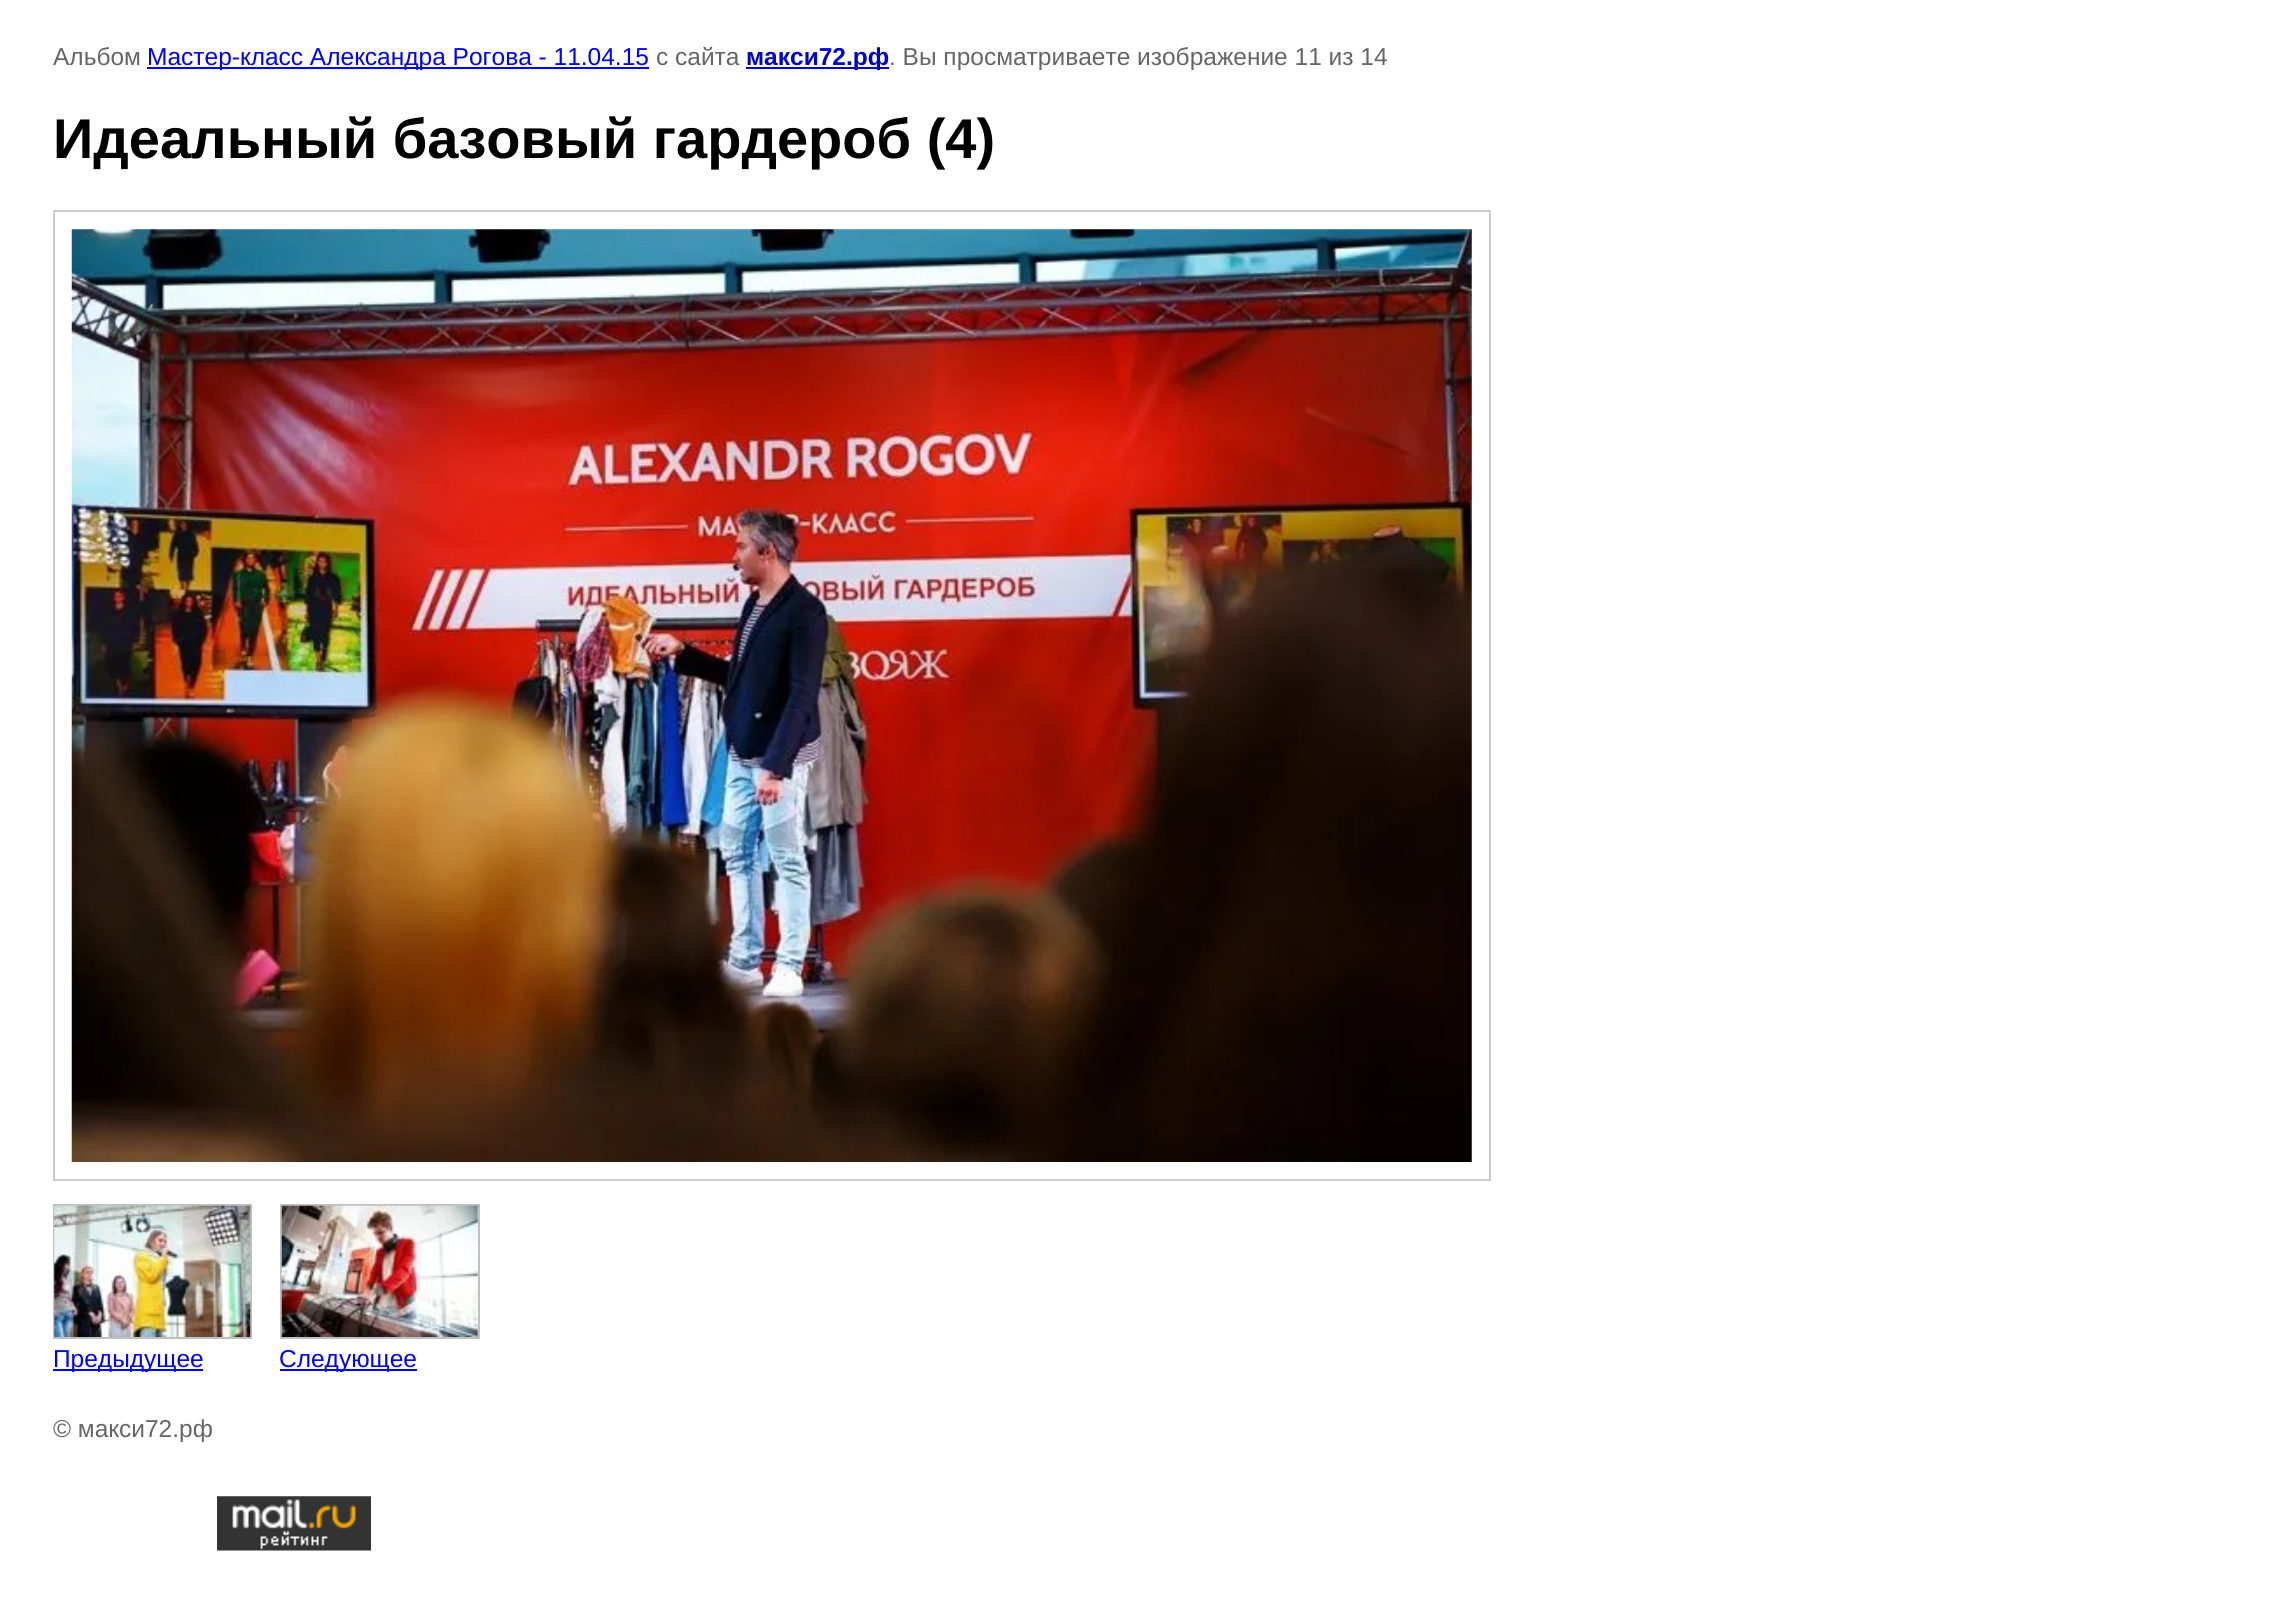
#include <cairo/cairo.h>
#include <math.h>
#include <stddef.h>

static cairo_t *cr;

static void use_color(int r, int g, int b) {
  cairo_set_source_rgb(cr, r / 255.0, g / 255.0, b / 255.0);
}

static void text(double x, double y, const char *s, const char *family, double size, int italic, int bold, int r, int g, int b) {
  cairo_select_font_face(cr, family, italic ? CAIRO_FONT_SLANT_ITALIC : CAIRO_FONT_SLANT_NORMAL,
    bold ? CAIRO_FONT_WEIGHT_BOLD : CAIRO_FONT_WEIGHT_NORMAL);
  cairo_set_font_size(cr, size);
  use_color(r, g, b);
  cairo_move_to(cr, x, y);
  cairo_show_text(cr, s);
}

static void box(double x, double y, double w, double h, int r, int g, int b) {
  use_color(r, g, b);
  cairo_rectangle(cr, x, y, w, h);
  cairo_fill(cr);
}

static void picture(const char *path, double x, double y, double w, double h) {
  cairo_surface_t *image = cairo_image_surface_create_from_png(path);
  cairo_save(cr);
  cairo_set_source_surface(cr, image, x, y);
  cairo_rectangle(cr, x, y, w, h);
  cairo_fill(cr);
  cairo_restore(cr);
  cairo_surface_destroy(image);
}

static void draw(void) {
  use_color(255, 255, 255);
  cairo_paint(cr);
  box(147, 67, 502, 2, 0, 0, 255);
  box(746, 67, 143, 2, 0, 0, 204);
  cairo_rectangle(cr, 54, 211, 1436, 969);
  use_color(204, 204, 204);
  cairo_stroke(cr);
  picture("img_01.png", 71, 229, 1401, 933);
  cairo_rectangle(cr, 54, 1205, 197, 133);
  use_color(192, 192, 192);
  cairo_stroke(cr);
  picture("img_02.png", 54, 1205, 197, 132);
  box(53, 1369, 150, 2, 0, 0, 255);
  cairo_rectangle(cr, 281, 1205, 198, 133);
  use_color(192, 192, 192);
  cairo_stroke(cr);
  picture("img_03.png", 281, 1205, 197, 132);
  box(280, 1369, 137, 2, 0, 0, 255);
  picture("img_04.png", 217, 1496, 154, 55);
  text(53, 65, "Альбом", "Liberation Sans", 24.5, 0, 0, 102, 102, 102);
  text(147, 65, "Мастер-класс Александра Рогова - 11.04.15", "Liberation Sans", 24.5, 0, 0, 0, 0, 255);
  text(656, 65, "с сайта", "Liberation Sans", 24.5, 0, 0, 102, 102, 102);
  text(746, 65, "макси72.рф", "Liberation Sans", 24.5, 0, 1, 0, 0, 204);
  text(889, 65, ". Вы просматриваете изображение 11 из 14", "Liberation Sans", 24.5, 0, 0, 102, 102, 102);
  text(53, 158, "Идеальный базовый гардероб (4)", "Liberation Sans", 56, 0, 1, 0, 0, 0);
  text(53, 1367, "Предыдущее", "Liberation Sans", 24.5, 0, 0, 0, 0, 255);
  text(279, 1367, "Следующее", "Liberation Sans", 24.5, 0, 0, 0, 0, 255);
  text(53, 1437, "© макси72.рф", "Liberation Sans", 24.5, 0, 0, 102, 102, 102);
}

int main(void) {
  cairo_surface_t *surface = cairo_image_surface_create(CAIRO_FORMAT_RGB24, 2279, 1618);
  cr = cairo_create(surface);
  cairo_font_options_t *options = cairo_font_options_create();
  cairo_font_options_set_hint_metrics(options, CAIRO_HINT_METRICS_OFF);
  cairo_font_options_set_hint_style(options, CAIRO_HINT_STYLE_NONE);
  cairo_set_font_options(cr, options);
  cairo_set_miter_limit(cr, 4);
  draw();
  cairo_surface_write_to_png(surface, "out.png");
  cairo_font_options_destroy(options);
  cairo_destroy(cr);
  cairo_surface_destroy(surface);
  return 0;
}
